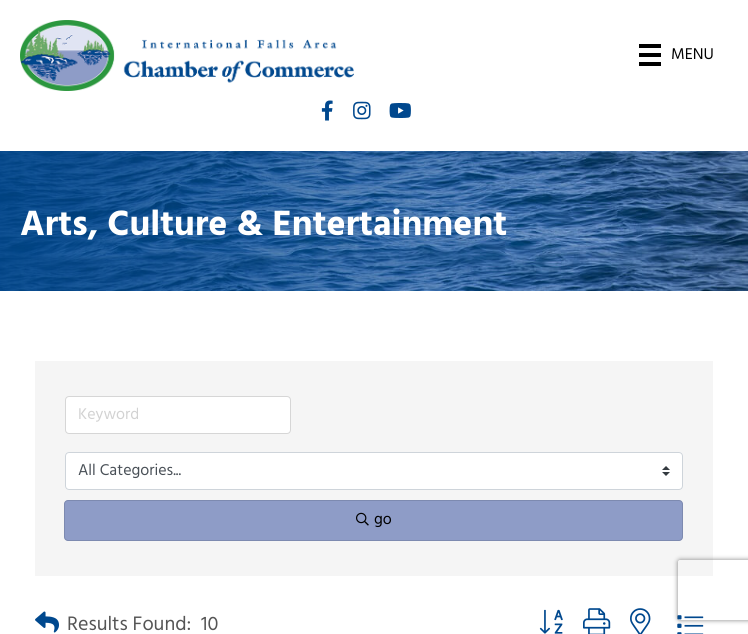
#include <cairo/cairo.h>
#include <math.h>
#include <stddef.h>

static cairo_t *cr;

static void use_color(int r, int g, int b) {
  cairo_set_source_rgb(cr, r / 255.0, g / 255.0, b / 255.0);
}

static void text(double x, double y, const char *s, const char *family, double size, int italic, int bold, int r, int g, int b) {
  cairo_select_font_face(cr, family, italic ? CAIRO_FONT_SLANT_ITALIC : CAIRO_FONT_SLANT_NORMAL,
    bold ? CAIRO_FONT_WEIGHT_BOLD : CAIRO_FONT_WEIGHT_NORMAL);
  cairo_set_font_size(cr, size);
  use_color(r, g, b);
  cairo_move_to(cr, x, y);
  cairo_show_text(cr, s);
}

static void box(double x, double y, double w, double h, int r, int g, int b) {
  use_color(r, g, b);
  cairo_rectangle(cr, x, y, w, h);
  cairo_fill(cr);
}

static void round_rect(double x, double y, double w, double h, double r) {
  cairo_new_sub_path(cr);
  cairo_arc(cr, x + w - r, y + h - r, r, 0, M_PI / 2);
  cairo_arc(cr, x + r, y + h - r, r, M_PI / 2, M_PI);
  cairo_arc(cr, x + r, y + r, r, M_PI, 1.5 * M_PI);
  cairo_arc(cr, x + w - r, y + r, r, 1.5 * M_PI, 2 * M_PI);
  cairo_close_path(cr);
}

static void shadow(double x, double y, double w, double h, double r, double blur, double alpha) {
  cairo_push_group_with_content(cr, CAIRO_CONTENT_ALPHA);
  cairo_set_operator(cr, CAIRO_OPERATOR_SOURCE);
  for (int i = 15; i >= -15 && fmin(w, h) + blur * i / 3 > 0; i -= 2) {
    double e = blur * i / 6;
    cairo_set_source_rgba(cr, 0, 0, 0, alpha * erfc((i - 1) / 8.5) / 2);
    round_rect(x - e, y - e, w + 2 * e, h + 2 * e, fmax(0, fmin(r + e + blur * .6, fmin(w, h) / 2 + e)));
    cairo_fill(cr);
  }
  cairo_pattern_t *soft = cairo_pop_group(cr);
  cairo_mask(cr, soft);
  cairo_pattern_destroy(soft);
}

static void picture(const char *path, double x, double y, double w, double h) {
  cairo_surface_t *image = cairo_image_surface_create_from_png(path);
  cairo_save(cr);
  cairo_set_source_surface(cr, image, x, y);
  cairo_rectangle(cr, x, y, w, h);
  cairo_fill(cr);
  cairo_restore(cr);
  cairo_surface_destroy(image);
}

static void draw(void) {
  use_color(255, 255, 255);
  cairo_paint(cr);
  picture("img_01.png", 20, 20, 334, 71);
  box(639, 44, 22, 4, 0, 0, 0);
  box(639, 53, 22, 4, 0, 0, 0);
  box(639, 62, 22, 4, 0, 0, 0);
  picture("img_02.png", 321, 100, 12, 21);
  picture("img_03.png", 353, 101, 18, 19);
  picture("img_04.png", 389, 103, 22, 15);
  picture("img_05.png", 0, 151, 748, 140);
  box(35, 361, 678, 215, 245, 245, 245);
  use_color(255, 255, 255);
  round_rect(65.5, 396.5, 225, 37, 3.5);
  cairo_fill_preserve(cr);
  use_color(214, 214, 214);
  cairo_set_line_width(cr, 1);
  cairo_stroke(cr);
  use_color(255, 255, 255);
  round_rect(65, 452, 618, 38, 4);
  cairo_fill(cr);
  picture("img_06.png", 662, 466, 8, 10);
  round_rect(65.5, 452.5, 617, 37, 3.5);
  use_color(206, 212, 218);
  cairo_stroke(cr);
  use_color(142, 156, 199);
  round_rect(64, 500, 619, 41, 4);
  cairo_fill(cr);
  round_rect(64.5, 500.5, 618, 40, 3.5);
  cairo_set_source_rgba(cr, 0, 0, 0, 0.12);
  cairo_stroke(cr);
  picture("img_07.png", 356, 512, 13, 14);
  picture("img_08.png", 35, 611, 24, 22);
  picture("img_09.png", 539, 609, 24, 25);
  picture("img_10.png", 583, 608, 28, 26);
  picture("img_11.png", 630, 608, 21, 26);
  picture("img_12.png", 677, 615, 27, 19);
  cairo_save(cr);
  cairo_set_fill_rule(cr, CAIRO_FILL_RULE_EVEN_ODD);
  cairo_new_path(cr);
  cairo_move_to(cr, 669, 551);
  cairo_line_to(cr, 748, 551);
  cairo_line_to(cr, 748, 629);
  cairo_line_to(cr, 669, 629);
  cairo_close_path(cr);
  cairo_move_to(cr, 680, 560);
  cairo_line_to(cr, 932, 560);
  cairo_curve_to(cr, 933, 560, 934, 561, 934, 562);
  cairo_line_to(cr, 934, 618);
  cairo_curve_to(cr, 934, 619, 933, 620, 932, 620);
  cairo_line_to(cr, 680, 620);
  cairo_curve_to(cr, 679, 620, 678, 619, 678, 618);
  cairo_line_to(cr, 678, 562);
  cairo_curve_to(cr, 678, 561, 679, 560, 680, 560);
  cairo_close_path(cr);
  cairo_clip(cr);
  use_color(128, 128, 128);
  shadow(678, 560, 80, 60, 2, 2.5, 1);
  cairo_restore(cr);
  text(671, 59, "MENU", "Hind", 16, 0, 0, 0, 0, 0);
  text(20, 235, "Arts, Culture & Entertainment", "Hind", 36, 0, 1, 255, 255, 255);
  text(78, 419, "Keyword", "Hind", 16, 0, 0, 210, 210, 210);
  text(78, 475, "All Categories...", "Hind", 16, 0, 0, 73, 80, 87);
  text(374, 524, "go", "Hind", 16, 0, 0, 0, 0, 0);
  text(67, 630, "Results Found:", "Hind", 20, 0, 0, 85, 85, 85);
  text(201, 630, "10", "Hind", 20, 0, 0, 85, 85, 85);
}

int main(void) {
  cairo_surface_t *surface = cairo_image_surface_create(CAIRO_FORMAT_RGB24, 748, 634);
  cr = cairo_create(surface);
  cairo_font_options_t *options = cairo_font_options_create();
  cairo_font_options_set_hint_metrics(options, CAIRO_HINT_METRICS_OFF);
  cairo_font_options_set_hint_style(options, CAIRO_HINT_STYLE_NONE);
  cairo_set_font_options(cr, options);
  cairo_set_miter_limit(cr, 4);
  draw();
  cairo_surface_write_to_png(surface, "out.png");
  cairo_font_options_destroy(options);
  cairo_destroy(cr);
  cairo_surface_destroy(surface);
  return 0;
}
